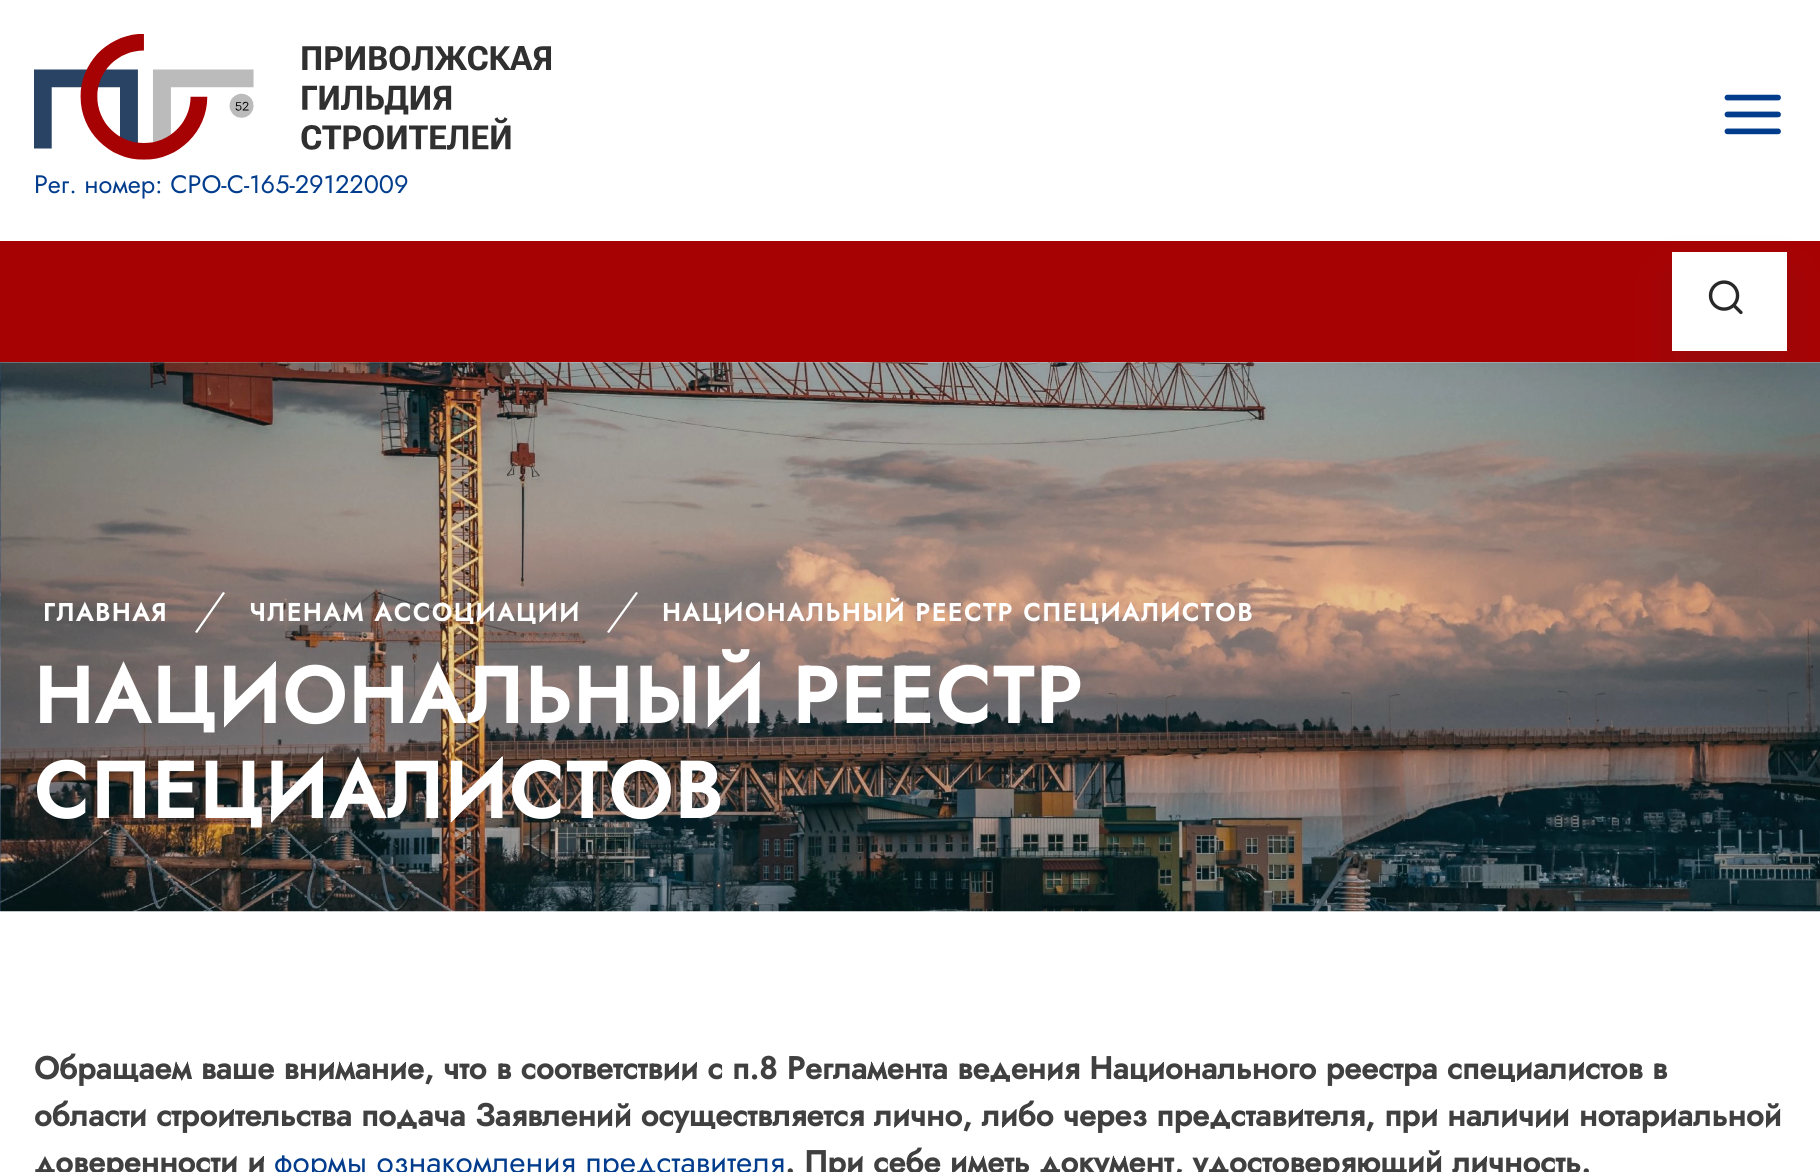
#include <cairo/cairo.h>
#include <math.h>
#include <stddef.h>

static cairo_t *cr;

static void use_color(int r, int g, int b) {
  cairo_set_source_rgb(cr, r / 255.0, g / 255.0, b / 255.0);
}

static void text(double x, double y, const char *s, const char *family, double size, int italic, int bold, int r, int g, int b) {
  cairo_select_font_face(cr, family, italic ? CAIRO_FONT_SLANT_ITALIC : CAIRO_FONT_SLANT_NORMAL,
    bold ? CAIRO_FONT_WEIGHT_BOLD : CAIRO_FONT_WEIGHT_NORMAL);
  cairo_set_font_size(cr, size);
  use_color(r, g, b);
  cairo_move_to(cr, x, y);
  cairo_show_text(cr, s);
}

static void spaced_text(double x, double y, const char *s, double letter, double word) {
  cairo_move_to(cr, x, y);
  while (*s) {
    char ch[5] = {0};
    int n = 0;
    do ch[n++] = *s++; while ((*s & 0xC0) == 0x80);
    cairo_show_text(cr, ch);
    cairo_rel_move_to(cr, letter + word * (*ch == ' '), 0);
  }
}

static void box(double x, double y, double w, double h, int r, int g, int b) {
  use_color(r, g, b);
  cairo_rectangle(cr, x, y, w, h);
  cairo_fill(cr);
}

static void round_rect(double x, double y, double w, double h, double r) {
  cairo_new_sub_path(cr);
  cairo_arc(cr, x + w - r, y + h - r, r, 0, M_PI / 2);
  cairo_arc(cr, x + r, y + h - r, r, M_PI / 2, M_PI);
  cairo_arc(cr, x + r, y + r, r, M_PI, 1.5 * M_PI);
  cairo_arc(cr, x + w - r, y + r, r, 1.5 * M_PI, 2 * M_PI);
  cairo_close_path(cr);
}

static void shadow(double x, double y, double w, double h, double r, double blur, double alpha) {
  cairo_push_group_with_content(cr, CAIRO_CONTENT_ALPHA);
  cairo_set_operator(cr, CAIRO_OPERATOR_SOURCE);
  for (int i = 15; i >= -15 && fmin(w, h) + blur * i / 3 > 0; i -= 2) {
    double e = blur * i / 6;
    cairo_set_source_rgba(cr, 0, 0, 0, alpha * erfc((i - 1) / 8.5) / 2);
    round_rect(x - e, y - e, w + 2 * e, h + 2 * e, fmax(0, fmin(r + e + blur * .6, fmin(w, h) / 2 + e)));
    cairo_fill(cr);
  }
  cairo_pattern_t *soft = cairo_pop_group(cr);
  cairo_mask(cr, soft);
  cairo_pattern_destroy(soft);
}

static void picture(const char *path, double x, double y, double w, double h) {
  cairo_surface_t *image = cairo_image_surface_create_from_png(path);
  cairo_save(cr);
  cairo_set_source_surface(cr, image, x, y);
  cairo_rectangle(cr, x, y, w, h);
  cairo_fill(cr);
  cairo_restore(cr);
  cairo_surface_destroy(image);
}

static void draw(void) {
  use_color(255, 255, 255);
  cairo_paint(cr);
  picture("img_01.png", 1724, 94, 57, 41);
  picture("img_02.png", 34, 34, 517, 126);
  box(0, 241, 1820, 121, 167, 2, 3);
  picture("img_04.png", 0, 362, 1820, 550);
  use_color(64, 64, 64);
  shadow(1670, 277, 119, 103, 0, 22.5, 0.13);
  box(1672, 252, 115, 99, 255, 255, 255);
  picture("img_03.png", 1708, 280, 35, 35);
  cairo_new_path(cr);
  cairo_move_to(cr, 223, 592);
  cairo_line_to(cr, 225, 593);
  cairo_line_to(cr, 197, 633);
  cairo_line_to(cr, 195, 632);
  cairo_close_path(cr);
  cairo_fill(cr);
  cairo_new_path(cr);
  cairo_move_to(cr, 636, 592);
  cairo_line_to(cr, 638, 593);
  cairo_line_to(cr, 609, 633);
  cairo_line_to(cr, 607, 632);
  cairo_close_path(cr);
  cairo_fill(cr);
  text(34, 193, "Рег. номер: СРО-С-165-29122009", "Jost", 25.25, 0, 0, 1, 60, 141);
  cairo_select_font_face(cr, "Jost", CAIRO_FONT_SLANT_NORMAL, CAIRO_FONT_WEIGHT_BOLD);
  cairo_set_font_size(cr, 24.75);
  use_color(255, 255, 255);
  spaced_text(43, 621, "ГЛАВНАЯ", 2, 0);
  spaced_text(249, 621, "ЧЛЕНАМ АССОЦИАЦИИ", 2, 0);
  spaced_text(662, 621, "НАЦИОНАЛЬНЫЙ РЕЕСТР СПЕЦИАЛИСТОВ", 2, 0);
  cairo_set_font_size(cr, 78.75);
  spaced_text(34, 723, "НАЦИОНАЛЬНЫЙ РЕЕСТР", 2.7, 0);
  spaced_text(34, 818, "СПЕЦИАЛИСТОВ", 2.7, 0);
  text(34, 1079, "Обращаем ваше внимание, что в соответствии с п.8 Регламента ведения Национального реестра специалистов в", "Jost", 31.5, 0, 1, 64, 64, 64);
  text(34, 1126, "области строительства подача Заявлений осуществляется лично, либо через представителя, при наличии нотариальной", "Jost", 31.5, 0, 1, 64, 64, 64);
  text(34, 1173, "доверенности и", "Jost", 31.5, 0, 1, 64, 64, 64);
  text(274, 1173, "формы ознакомления представителя", "Jost", 31.5, 0, 0, 1, 60, 141);
  text(785, 1173, ". При себе иметь документ, удостоверяющий личность.", "Jost", 31.5, 0, 1, 64, 64, 64);
}

int main(void) {
  cairo_surface_t *surface = cairo_image_surface_create(CAIRO_FORMAT_RGB24, 1820, 1172);
  cr = cairo_create(surface);
  cairo_font_options_t *options = cairo_font_options_create();
  cairo_font_options_set_hint_metrics(options, CAIRO_HINT_METRICS_OFF);
  cairo_font_options_set_hint_style(options, CAIRO_HINT_STYLE_NONE);
  cairo_set_font_options(cr, options);
  cairo_set_miter_limit(cr, 4);
  draw();
  cairo_surface_write_to_png(surface, "out.png");
  cairo_font_options_destroy(options);
  cairo_destroy(cr);
  cairo_surface_destroy(surface);
  return 0;
}
